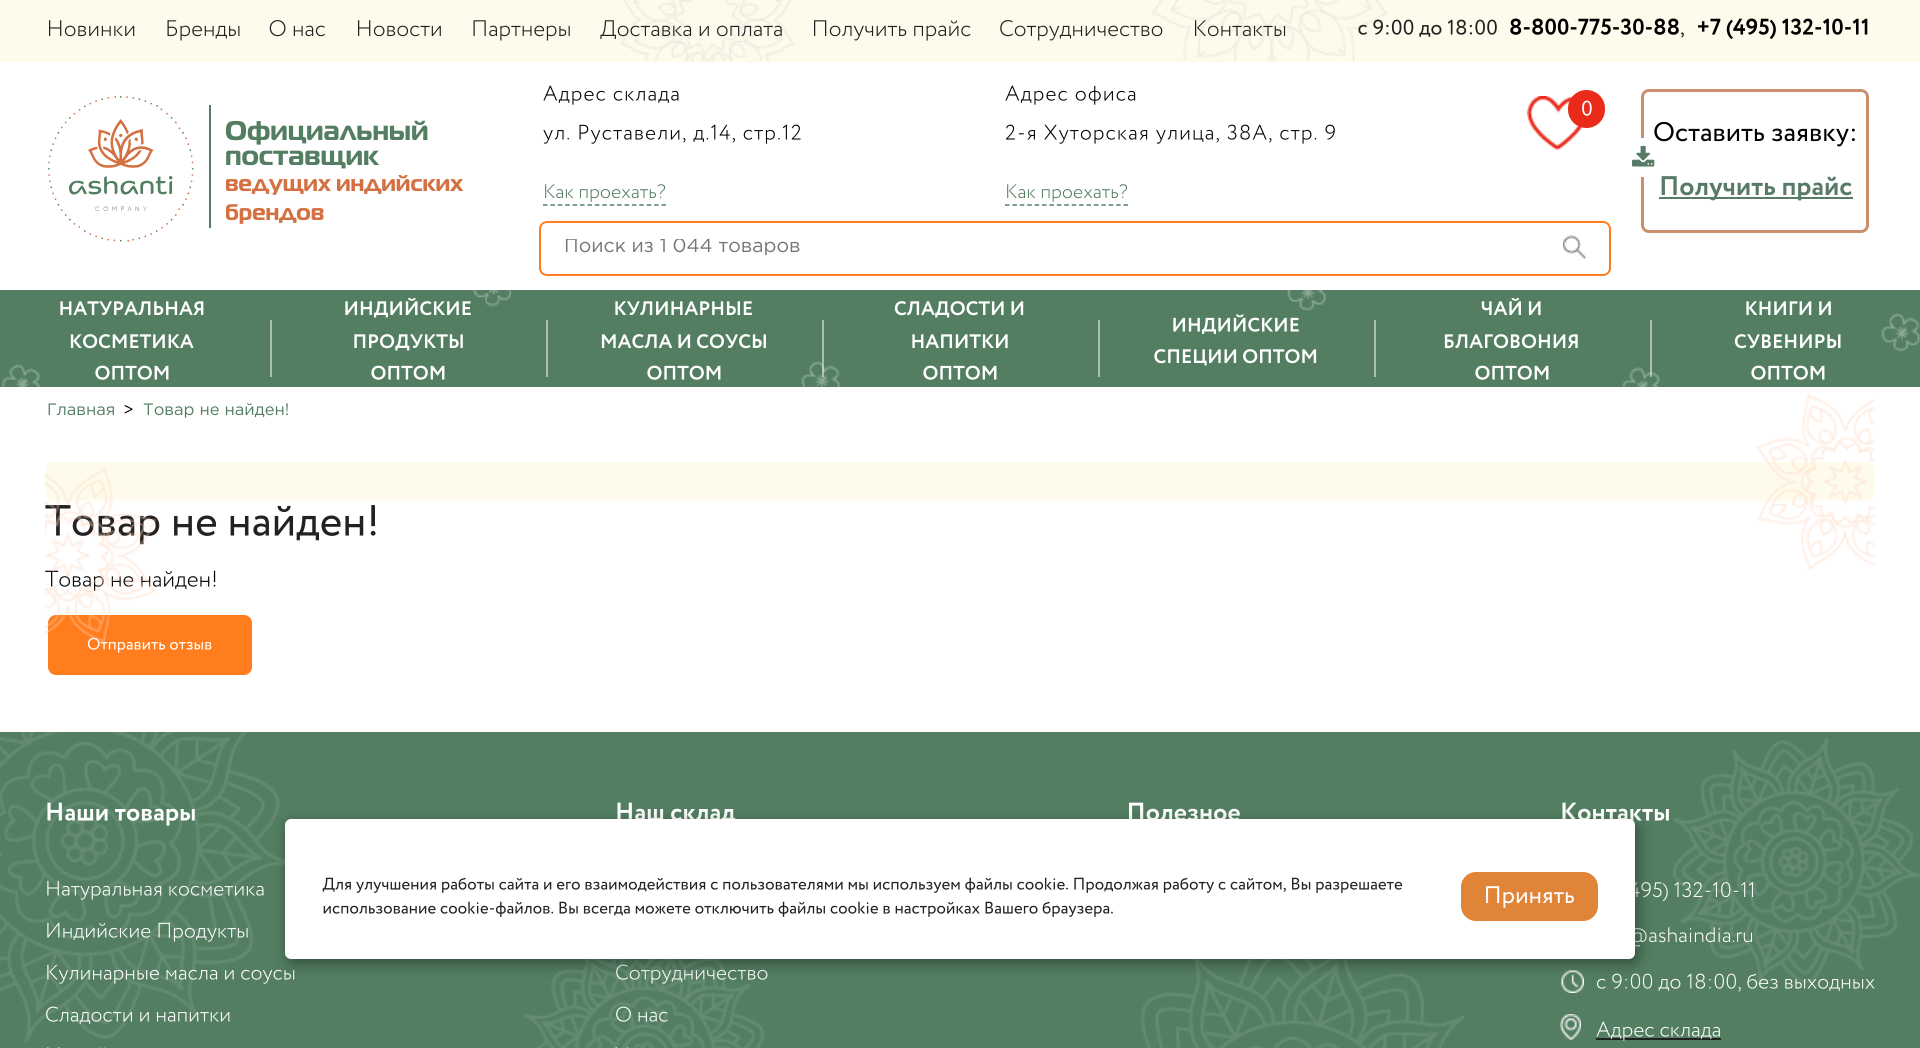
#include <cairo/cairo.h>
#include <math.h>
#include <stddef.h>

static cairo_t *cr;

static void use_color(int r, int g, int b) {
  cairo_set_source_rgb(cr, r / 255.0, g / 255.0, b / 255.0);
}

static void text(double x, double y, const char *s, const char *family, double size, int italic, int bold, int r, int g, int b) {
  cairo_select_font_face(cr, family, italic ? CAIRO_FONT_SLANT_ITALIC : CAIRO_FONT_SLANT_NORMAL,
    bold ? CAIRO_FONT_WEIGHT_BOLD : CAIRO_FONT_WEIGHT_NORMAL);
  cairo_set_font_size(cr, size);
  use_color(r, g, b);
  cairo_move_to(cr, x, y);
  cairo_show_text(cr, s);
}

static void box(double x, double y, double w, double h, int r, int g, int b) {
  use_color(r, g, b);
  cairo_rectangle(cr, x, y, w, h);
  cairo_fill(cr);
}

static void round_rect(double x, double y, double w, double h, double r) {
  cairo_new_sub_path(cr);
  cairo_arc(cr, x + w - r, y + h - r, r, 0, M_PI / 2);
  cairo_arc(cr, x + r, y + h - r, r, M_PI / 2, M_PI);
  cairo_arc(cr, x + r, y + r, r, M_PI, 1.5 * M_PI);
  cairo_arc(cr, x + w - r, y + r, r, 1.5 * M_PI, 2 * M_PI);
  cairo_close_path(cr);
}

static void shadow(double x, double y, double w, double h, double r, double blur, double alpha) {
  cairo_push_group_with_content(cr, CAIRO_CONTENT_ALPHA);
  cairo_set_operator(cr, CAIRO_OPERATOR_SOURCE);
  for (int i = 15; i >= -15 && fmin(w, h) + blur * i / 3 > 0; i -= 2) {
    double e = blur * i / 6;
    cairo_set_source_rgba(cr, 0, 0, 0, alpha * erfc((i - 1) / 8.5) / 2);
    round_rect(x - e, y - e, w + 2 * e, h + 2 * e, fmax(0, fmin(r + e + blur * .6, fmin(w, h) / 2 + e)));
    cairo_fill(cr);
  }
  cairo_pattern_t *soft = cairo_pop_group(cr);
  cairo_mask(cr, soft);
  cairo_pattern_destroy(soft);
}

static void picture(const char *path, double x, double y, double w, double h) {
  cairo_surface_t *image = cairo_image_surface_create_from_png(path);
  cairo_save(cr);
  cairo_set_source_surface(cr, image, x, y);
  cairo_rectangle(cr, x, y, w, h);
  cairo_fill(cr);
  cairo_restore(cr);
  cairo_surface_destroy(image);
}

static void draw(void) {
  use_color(255, 255, 255);
  cairo_paint(cr);
  box(0, 0, 1920, 62, 254, 251, 236);
  picture("img_01.png", 620, 0, 767, 62);
  picture("img_02.png", 49, 20, 86, 17);
  picture("img_03.png", 167, 20, 73, 21);
  picture("img_04.png", 269, 20, 56, 17);
  picture("img_05.png", 358, 20, 83, 17);
  picture("img_06.png", 473, 20, 97, 21);
  picture("img_07.png", 600, 20, 182, 19);
  picture("img_08.png", 814, 20, 157, 21);
  picture("img_09.png", 1000, 20, 163, 21);
  picture("img_10.png", 1195, 20, 91, 17);
  picture("img_11.png", 1358, 19, 139, 18);
  picture("img_12.png", 1510, 18, 169, 17);
  picture("img_13.png", 1681, 32, 3, 6);
  picture("img_14.png", 1698, 18, 170, 21);
  picture("img_15.png", 48, 96, 146, 146);
  box(209, 105, 2, 123, 83, 126, 97);
  round_rect(1642.5, 90.5, 225, 141, 6.5);
  use_color(202, 144, 110);
  cairo_set_line_width(cr, 3);
  cairo_stroke(cr);
  picture("img_16.png", 1654, 121, 201, 26);
  box(1641, 138, 3, 39, 255, 255, 255);
  picture("img_17.png", 1632, 145, 23, 22);
  box(1659, 197, 194, 2, 87, 123, 103);
  picture("img_18.png", 1661, 176, 191, 25);
  picture("img_19.png", 543, 85, 136, 20);
  picture("img_20.png", 543, 124, 258, 20);
  cairo_new_path(cr);
  cairo_move_to(cr, 543, 205);
  cairo_line_to(cr, 666, 205);
  use_color(83, 126, 97);
  cairo_set_line_width(cr, 1.5);
  cairo_set_dash(cr, (double[]){4.5, 2.91}, 2, 0);
  cairo_stroke(cr);
  picture("img_21.png", 545, 184, 121, 18);
  picture("img_22.png", 1005, 85, 131, 20);
  picture("img_23.png", 1006, 124, 329, 20);
  cairo_new_path(cr);
  cairo_move_to(cr, 1005, 205);
  cairo_line_to(cr, 1128, 205);
  cairo_stroke(cr);
  picture("img_21.png", 1007, 184, 121, 18);
  picture("img_24.png", 1527, 96, 56, 54);
  use_color(234, 43, 28);
  round_rect(1568, 90, 37, 38, 18.5);
  cairo_fill(cr);
  picture("img_25.png", 1582, 100, 10, 16);
  round_rect(540, 222, 1070, 53, 7);
  use_color(255, 125, 29);
  cairo_set_line_width(cr, 2);
  cairo_set_dash(cr, NULL, 0, 0);
  cairo_stroke(cr);
  picture("img_26.png", 1563, 235, 23, 25);
  box(0, 290, 1920, 97, 83, 126, 97);
  picture("img_27.png", 2, 290, 1918, 97);
  picture("img_28.png", 60, 301, 144, 15);
  picture("img_29.png", 70, 334, 124, 15);
  picture("img_30.png", 95, 365, 74, 15);
  box(270, 320, 2, 57, 169, 191, 176);
  picture("img_31.png", 345, 298, 126, 20);
  picture("img_32.png", 354, 334, 109, 17);
  picture("img_30.png", 371, 365, 74, 15);
  box(546, 320, 2, 57, 169, 191, 176);
  picture("img_33.png", 615, 301, 137, 15);
  picture("img_34.png", 601, 334, 165, 15);
  picture("img_30.png", 647, 365, 74, 15);
  cairo_set_source_rgba(cr, 1, 1, 1, 0.5);
  cairo_rectangle(cr, 822, 320, 2, 57);
  cairo_fill(cr);
  picture("img_35.png", 894, 301, 130, 17);
  picture("img_36.png", 912, 334, 96, 14);
  picture("img_30.png", 923, 365, 74, 15);
  box(1098, 320, 2, 57, 169, 191, 176);
  picture("img_37.png", 1173, 314, 126, 20);
  picture("img_38.png", 1154, 349, 163, 17);
  box(1374, 320, 2, 57, 169, 191, 176);
  picture("img_39.png", 1481, 298, 60, 17);
  picture("img_40.png", 1444, 334, 134, 15);
  picture("img_30.png", 1475, 365, 74, 15);
  cairo_set_source_rgba(cr, 1, 1, 1, 0.5);
  cairo_rectangle(cr, 1650, 320, 2, 57);
  cairo_fill(cr);
  picture("img_41.png", 1746, 301, 85, 14);
  picture("img_42.png", 1734, 334, 107, 15);
  picture("img_30.png", 1751, 365, 74, 15);
  use_color(254, 251, 236);
  round_rect(45, 462, 1830, 39, 9);
  cairo_fill(cr);
  picture("img_45.png", 45, 505, 331, 40);
  picture("img_46.png", 45, 570, 171, 21);
  use_color(255, 125, 29);
  round_rect(48, 615, 204, 60, 8);
  cairo_fill(cr);
  picture("img_47.png", 87, 637, 125, 16);
  picture("img_43.png", 45, 467, 111, 176);
  picture("img_44.png", 1756, 393, 119, 177);
  box(0, 732, 1920, 316, 83, 126, 97);
  picture("img_48.png", 0, 732, 1920, 316);
  picture("img_49.png", 47, 802, 148, 24);
  picture("img_50.png", 47, 880, 217, 20);
  picture("img_51.png", 47, 922, 201, 20);
  picture("img_52.png", 47, 964, 248, 20);
  picture("img_53.png", 46, 1006, 184, 18);
  picture("img_54.png", 47, 1047, 58, 1);
  picture("img_55.png", 617, 802, 119, 17);
  picture("img_56.png", 616, 964, 152, 20);
  picture("img_57.png", 616, 1006, 52, 16);
  picture("img_58.png", 615, 1047, 14, 1);
  picture("img_59.png", 1128, 802, 112, 17);
  picture("img_60.png", 1562, 802, 107, 19);
  picture("img_61.png", 1635, 882, 119, 20);
  picture("img_62.png", 1635, 927, 118, 20);
  picture("img_63.png", 1561, 970, 23, 23);
  picture("img_64.png", 1597, 973, 278, 19);
  picture("img_65.png", 1560, 1014, 21, 27);
  box(1596, 1038, 125, 2, 34, 34, 34);
  picture("img_66.png", 1596, 1021, 124, 20);
  use_color(0, 0, 0);
  shadow(288, 824, 1350, 139, 6, 7.5, 0.4);
  use_color(255, 255, 255);
  round_rect(285, 819, 1350, 140, 6);
  cairo_fill(cr);
  picture("img_67.png", 322, 877, 1081, 16);
  picture("img_68.png", 323, 901, 790, 16);
  use_color(224, 132, 56);
  round_rect(1461, 872, 137, 49, 15);
  cairo_fill(cr);
  picture("img_69.png", 1486, 886, 88, 22);
  text(225, 140, "Официальный", "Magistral", 27, 0, 1, 83, 126, 97);
  text(225, 165, "поставщик", "Magistral", 27, 0, 1, 83, 126, 97);
  text(225, 191, "ведущих индийских", "Magistral", 22.5, 0, 1, 211, 113, 67);
  text(225, 220, "брендов", "Magistral", 22.5, 0, 1, 211, 113, 67);
  cairo_save(cr);
  cairo_rectangle(cr, 564, 239, 1043, 18);
  cairo_clip(cr);
  text(564, 252, "Поиск из 1 044 товаров", "Gotham", 19.5, 0, 0, 117, 117, 117);
  cairo_restore(cr);
  text(47, 415, "Главная", "Gotham", 16.5, 0, 0, 83, 126, 97);
  text(123, 415, ">", "Gotham", 16.5, 0, 0, 0, 0, 0);
  text(143, 415, "Товар не найден!", "Gotham", 16.5, 0, 0, 83, 126, 97);
}

int main(void) {
  cairo_surface_t *surface = cairo_image_surface_create(CAIRO_FORMAT_RGB24, 1920, 1048);
  cr = cairo_create(surface);
  cairo_font_options_t *options = cairo_font_options_create();
  cairo_font_options_set_hint_metrics(options, CAIRO_HINT_METRICS_OFF);
  cairo_font_options_set_hint_style(options, CAIRO_HINT_STYLE_NONE);
  cairo_set_font_options(cr, options);
  cairo_set_miter_limit(cr, 4);
  draw();
  cairo_surface_write_to_png(surface, "out.png");
  cairo_font_options_destroy(options);
  cairo_destroy(cr);
  cairo_surface_destroy(surface);
  return 0;
}
